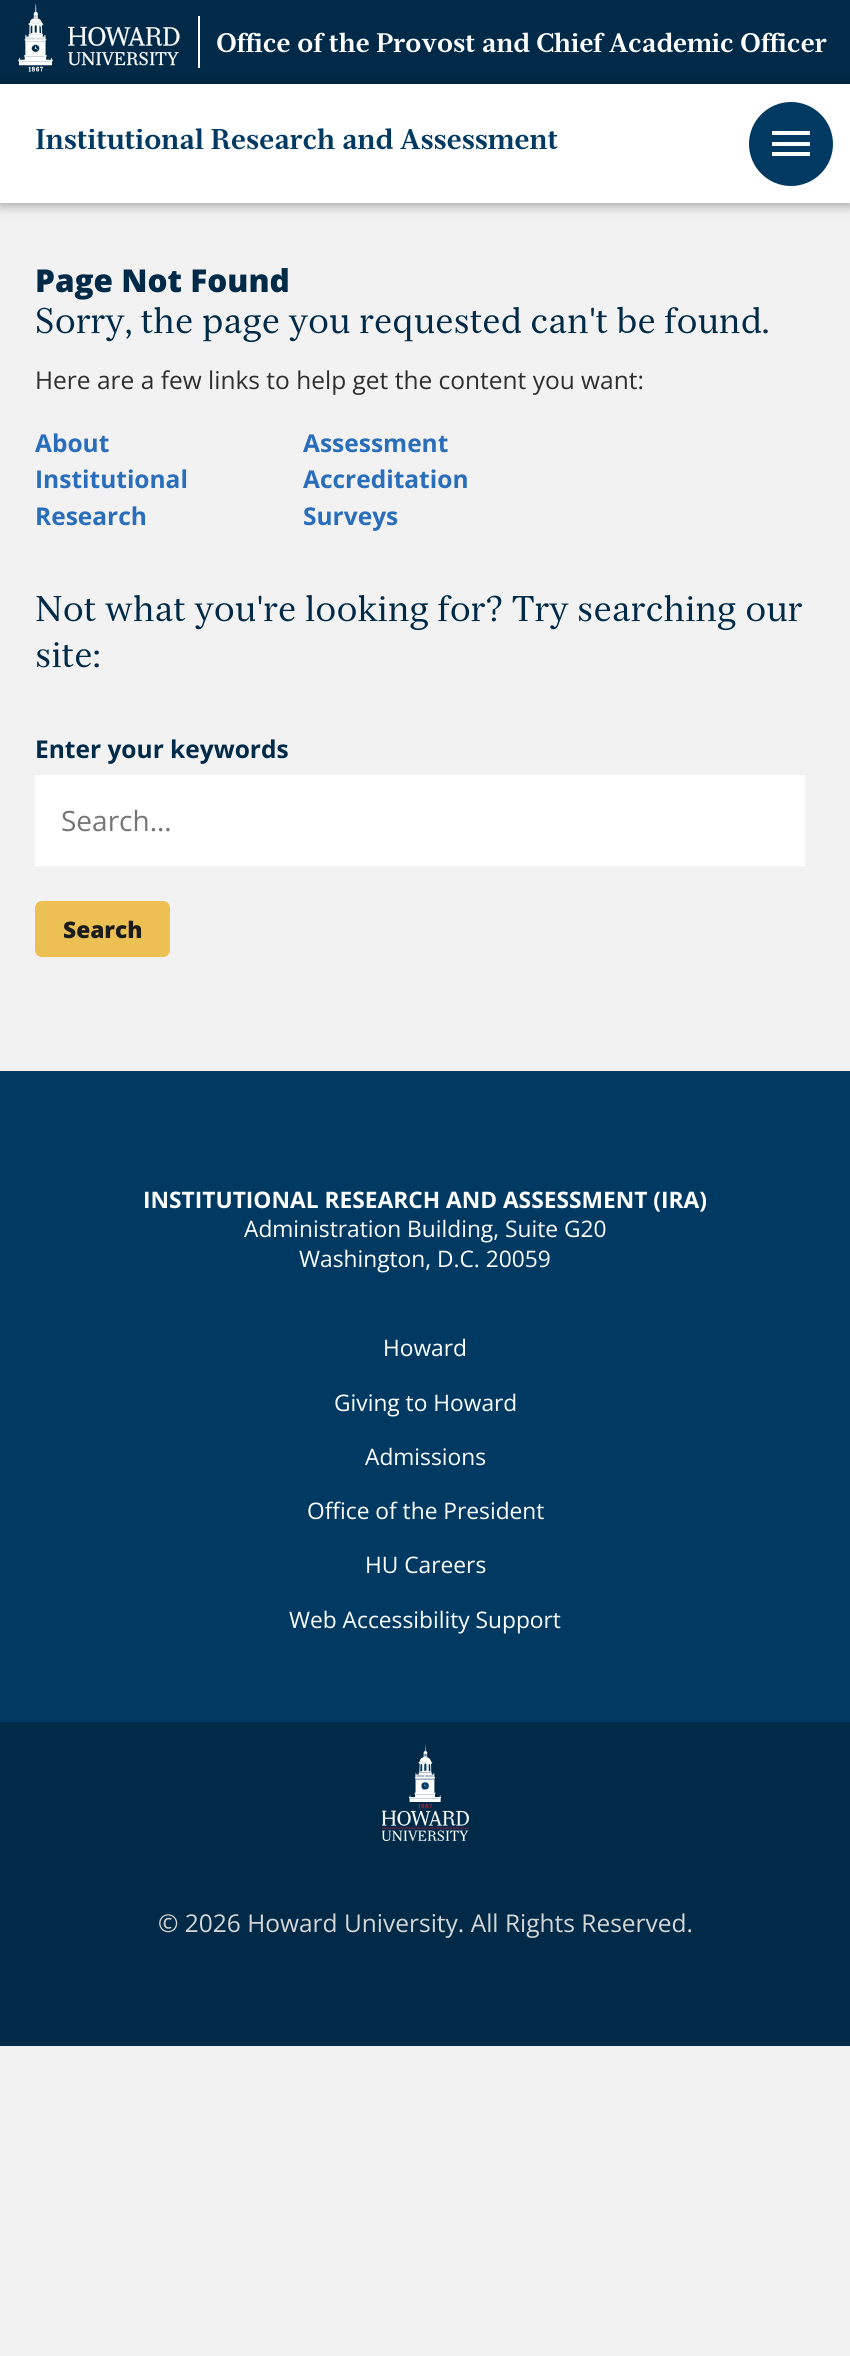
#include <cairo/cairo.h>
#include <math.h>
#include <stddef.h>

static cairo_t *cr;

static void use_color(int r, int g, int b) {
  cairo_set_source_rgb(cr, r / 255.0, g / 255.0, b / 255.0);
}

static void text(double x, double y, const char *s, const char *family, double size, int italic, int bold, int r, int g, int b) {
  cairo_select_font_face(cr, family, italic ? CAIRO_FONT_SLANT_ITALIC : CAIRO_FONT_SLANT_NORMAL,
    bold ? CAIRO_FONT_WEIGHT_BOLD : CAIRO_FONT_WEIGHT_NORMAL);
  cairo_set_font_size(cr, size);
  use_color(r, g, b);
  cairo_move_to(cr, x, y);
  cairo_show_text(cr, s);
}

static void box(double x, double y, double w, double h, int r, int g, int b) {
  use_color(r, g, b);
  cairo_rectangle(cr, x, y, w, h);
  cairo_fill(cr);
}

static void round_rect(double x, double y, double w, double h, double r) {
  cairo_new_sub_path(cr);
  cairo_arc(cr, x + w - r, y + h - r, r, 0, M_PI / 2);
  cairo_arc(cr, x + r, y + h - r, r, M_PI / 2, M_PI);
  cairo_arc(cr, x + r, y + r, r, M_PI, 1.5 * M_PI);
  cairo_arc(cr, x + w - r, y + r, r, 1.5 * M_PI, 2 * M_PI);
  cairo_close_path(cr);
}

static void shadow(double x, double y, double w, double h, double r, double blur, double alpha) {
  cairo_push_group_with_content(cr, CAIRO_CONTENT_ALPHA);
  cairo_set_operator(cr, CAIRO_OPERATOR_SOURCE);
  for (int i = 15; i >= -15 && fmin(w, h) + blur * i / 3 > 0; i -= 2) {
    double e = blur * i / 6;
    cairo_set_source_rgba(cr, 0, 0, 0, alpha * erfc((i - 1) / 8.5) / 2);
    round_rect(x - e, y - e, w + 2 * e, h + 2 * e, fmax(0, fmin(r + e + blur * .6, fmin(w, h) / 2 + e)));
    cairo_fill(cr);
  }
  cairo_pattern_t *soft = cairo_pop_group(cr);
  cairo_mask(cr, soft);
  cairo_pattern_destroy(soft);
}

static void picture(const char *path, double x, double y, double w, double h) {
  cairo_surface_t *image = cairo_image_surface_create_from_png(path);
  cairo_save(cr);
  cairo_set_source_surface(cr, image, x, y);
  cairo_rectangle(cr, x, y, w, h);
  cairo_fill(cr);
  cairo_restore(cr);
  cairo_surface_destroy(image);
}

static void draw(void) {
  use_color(242, 242, 242);
  cairo_paint(cr);
  box(0, 0, 850, 84, 0, 42, 71);
  picture("img_01.png", 18, 4, 162, 68);
  box(198, 16, 2, 52, 255, 255, 255);
  use_color(0, 0, 0);
  shadow(0, 86, 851, 119, 0, 6, 0.35);
  box(0, 84, 850, 119, 255, 255, 255);
  use_color(0, 58, 99);
  cairo_arc(cr, 791, 144, 42, 0, 2 * M_PI);
  cairo_fill(cr);
  box(772, 131, 38, 4, 255, 255, 255);
  box(772, 142, 38, 4, 255, 255, 255);
  box(772, 152, 38, 4, 255, 255, 255);
  box(35, 775, 770, 91, 255, 255, 255);
  use_color(237, 192, 84);
  round_rect(35, 901, 135, 56, 7);
  cairo_fill(cr);
  box(0, 1071, 850, 651, 0, 58, 99);
  box(0, 1722, 850, 324, 0, 42, 71);
  picture("img_02.png", 382, 1743, 87, 98);
  text(216, 52, "Office of the Provost and Chief Academic Officer", "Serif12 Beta", 26.25, 0, 1, 255, 255, 255);
  text(35, 149, "Institutional Research and Assessment", "Serif12 Beta", 28, 0, 1, 0, 58, 99);
  text(35, 292, "Page Not Found", "Open Sans ExtraBold", 31.5, 0, 0, 0, 42, 71);
  text(35, 333, "Sorry, the page you requested can't be found.", "Serif12 Beta", 35, 0, 0, 0, 42, 71);
  text(35, 389, "Here are a few links to help get the content you want:", "Open Sans", 24.5, 0, 0, 47, 47, 47);
  text(35, 452, "About", "Open Sans", 24.5, 0, 1, 42, 110, 187);
  text(303, 452, "Assessment", "Open Sans", 24.5, 0, 1, 42, 110, 187);
  text(35, 488, "Institutional", "Open Sans", 24.5, 0, 1, 42, 110, 187);
  text(35, 525, "Research", "Open Sans", 24.5, 0, 1, 42, 110, 187);
  text(303, 488, "Accreditation", "Open Sans", 24.5, 0, 1, 42, 110, 187);
  text(303, 525, "Surveys", "Open Sans", 24.5, 0, 1, 42, 110, 187);
  text(35, 621, "Not what you're looking for? Try searching our", "Serif12 Beta", 35, 0, 0, 0, 42, 71);
  text(35, 667, "site:", "Serif12 Beta", 35, 0, 0, 0, 42, 71);
  text(35, 758, "Enter your keywords", "Open Sans", 24.5, 0, 1, 0, 42, 71);
  text(61, 831, "Search...", "Open Sans", 28, 0, 0, 117, 117, 117);
  text(63, 938, "Search", "Open Sans ExtraBold", 22.75, 0, 0, 27, 27, 27);
  text(143, 1208, "INSTITUTIONAL RESEARCH AND ASSESSMENT (IRA)", "Open Sans", 22.75, 0, 1, 255, 255, 255);
  text(244, 1237, "Administration Building, Suite G20", "Open Sans", 22.75, 0, 0, 255, 255, 255);
  text(299, 1267, "Washington, D.C. 20059", "Open Sans", 22.75, 0, 0, 255, 255, 255);
  text(383, 1356, "Howard", "Open Sans", 22.75, 0, 0, 255, 255, 255);
  text(334, 1411, "Giving to Howard", "Open Sans", 22.75, 0, 0, 255, 255, 255);
  text(365, 1465, "Admissions", "Open Sans", 22.75, 0, 0, 255, 255, 255);
  text(307, 1519, "Office of the President", "Open Sans", 22.75, 0, 0, 255, 255, 255);
  text(365, 1573, "HU Careers", "Open Sans", 22.75, 0, 0, 255, 255, 255);
  text(289, 1628, "Web Accessibility Support", "Open Sans", 22.75, 0, 0, 255, 255, 255);
  text(158, 1932, "© 2026 Howard University. All Rights Reserved.", "Open Sans", 24.5, 0, 0, 214, 214, 214);
}

int main(void) {
  cairo_surface_t *surface = cairo_image_surface_create(CAIRO_FORMAT_RGB24, 850, 2356);
  cr = cairo_create(surface);
  cairo_font_options_t *options = cairo_font_options_create();
  cairo_font_options_set_hint_metrics(options, CAIRO_HINT_METRICS_OFF);
  cairo_font_options_set_hint_style(options, CAIRO_HINT_STYLE_NONE);
  cairo_set_font_options(cr, options);
  cairo_set_miter_limit(cr, 4);
  draw();
  cairo_surface_write_to_png(surface, "out.png");
  cairo_font_options_destroy(options);
  cairo_destroy(cr);
  cairo_surface_destroy(surface);
  return 0;
}
